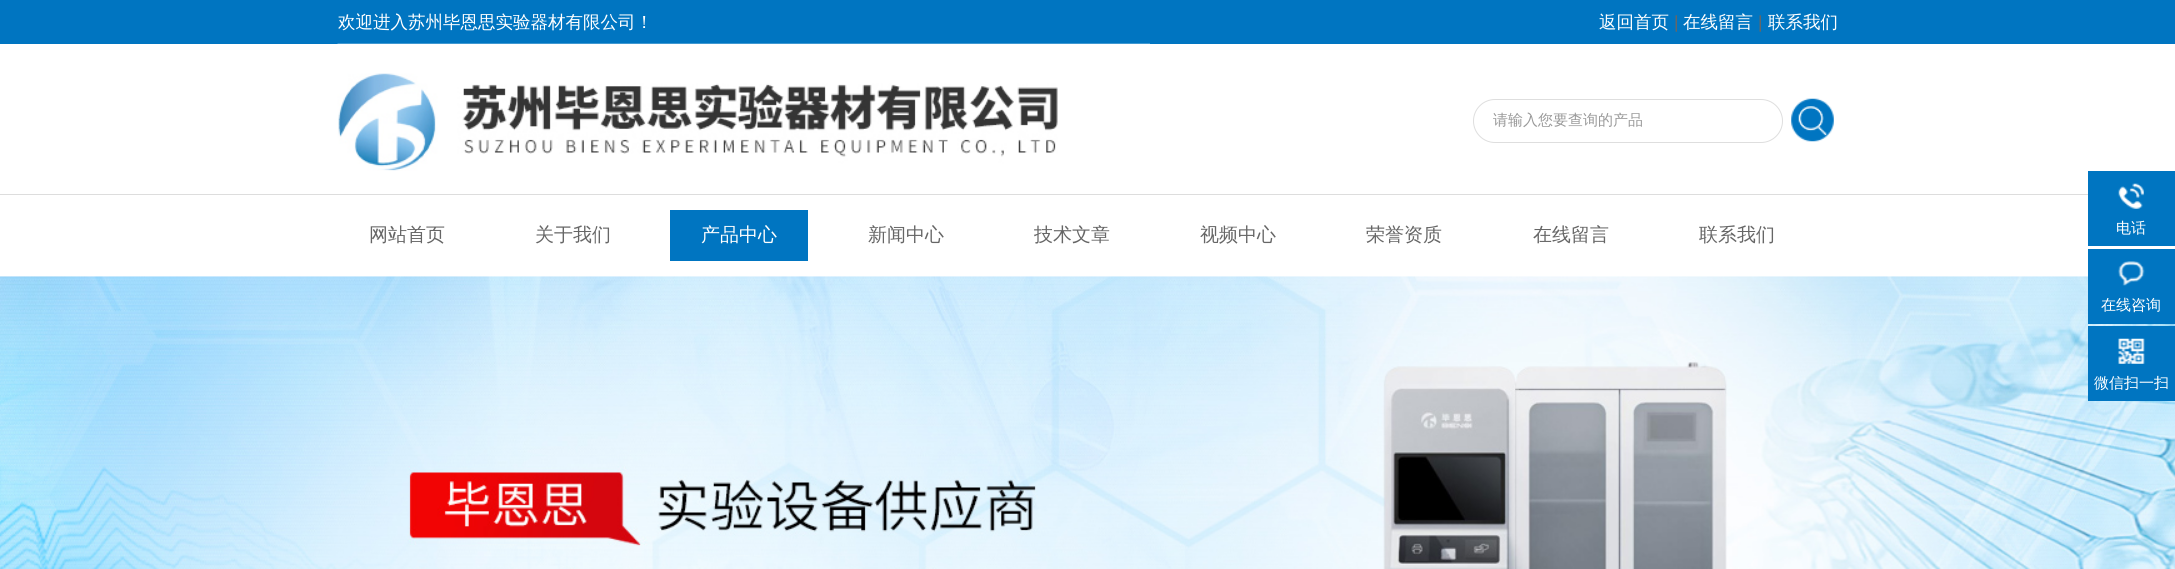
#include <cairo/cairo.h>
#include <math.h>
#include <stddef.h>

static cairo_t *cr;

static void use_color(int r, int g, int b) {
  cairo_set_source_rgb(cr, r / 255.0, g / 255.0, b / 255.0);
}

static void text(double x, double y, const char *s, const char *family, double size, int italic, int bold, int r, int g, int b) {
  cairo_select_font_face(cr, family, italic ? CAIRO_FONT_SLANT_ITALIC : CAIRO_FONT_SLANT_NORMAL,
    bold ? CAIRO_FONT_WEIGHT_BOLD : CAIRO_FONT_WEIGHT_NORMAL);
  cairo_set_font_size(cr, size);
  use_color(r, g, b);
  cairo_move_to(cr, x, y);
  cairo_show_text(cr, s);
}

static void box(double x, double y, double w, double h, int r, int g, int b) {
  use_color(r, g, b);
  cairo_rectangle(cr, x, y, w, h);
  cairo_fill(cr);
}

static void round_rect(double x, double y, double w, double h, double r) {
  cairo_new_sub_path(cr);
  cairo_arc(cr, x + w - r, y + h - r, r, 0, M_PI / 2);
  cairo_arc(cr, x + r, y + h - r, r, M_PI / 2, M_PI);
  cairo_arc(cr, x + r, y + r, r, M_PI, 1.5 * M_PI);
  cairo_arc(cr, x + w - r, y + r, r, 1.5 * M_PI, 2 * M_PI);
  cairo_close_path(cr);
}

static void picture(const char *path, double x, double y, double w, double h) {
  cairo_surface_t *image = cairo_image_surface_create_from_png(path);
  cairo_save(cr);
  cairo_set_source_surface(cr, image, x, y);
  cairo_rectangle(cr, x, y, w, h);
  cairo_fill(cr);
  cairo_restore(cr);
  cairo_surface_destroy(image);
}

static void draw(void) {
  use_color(255, 255, 255);
  cairo_paint(cr);
  box(0, 0, 2175, 44, 0, 117, 193);
  picture("img_01.png", 337, 43, 813, 128);
  round_rect(1473.5, 99.5, 309, 43, 21.5);
  use_color(222, 222, 222);
  cairo_set_line_width(cr, 1);
  cairo_stroke(cr);
  picture("img_02.png", 1791, 98, 43, 44);
  box(0, 194, 2088, 1, 221, 221, 221);
  box(670, 210, 138, 51, 0, 117, 193);
  box(2088, 171, 87, 75, 0, 117, 193);
  picture("img_03.png", 2118, 183, 26, 26);
  picture("img_06.png", 0, 276, 2175, 293);
  box(2088, 249, 87, 75, 0, 117, 193);
  picture("img_04.png", 2118, 261, 27, 25);
  box(2088, 326, 87, 75, 0, 117, 193);
  picture("img_05.png", 2118, 338, 27, 26);
  text(338, 28, "欢迎进入苏州毕恩思实验器材有限公司！", "WenQuanYi Zen Hei Medium", 17.5, 0, 0, 255, 255, 255);
  text(1599, 28, "返回首页", "WenQuanYi Zen Hei Medium", 17.5, 0, 0, 255, 255, 255);
  text(1674, 28, "|", "Liberation Sans", 17.5, 0, 0, 102, 102, 102);
  text(1683, 28, "在线留言", "WenQuanYi Zen Hei Medium", 17.5, 0, 0, 255, 255, 255);
  text(1758, 28, "|", "Liberation Sans", 17.5, 0, 0, 102, 102, 102);
  text(1768, 28, "联系我们", "WenQuanYi Zen Hei Medium", 17.5, 0, 0, 255, 255, 255);
  text(1493, 125, "请输入您要查询的产品", "WenQuanYi Zen Hei Medium", 15, 0, 0, 153, 153, 153);
  text(369, 241, "网站首页", "WenQuanYi Zen Hei Medium", 19, 0, 0, 102, 102, 102);
  text(535, 241, "关于我们", "WenQuanYi Zen Hei Medium", 19, 0, 0, 102, 102, 102);
  text(701, 241, "产品中心", "WenQuanYi Zen Hei Medium", 19, 0, 0, 255, 255, 255);
  text(868, 241, "新闻中心", "WenQuanYi Zen Hei Medium", 19, 0, 0, 102, 102, 102);
  text(1034, 241, "技术文章", "WenQuanYi Zen Hei Medium", 19, 0, 0, 102, 102, 102);
  text(1200, 241, "视频中心", "WenQuanYi Zen Hei Medium", 19, 0, 0, 102, 102, 102);
  text(1366, 241, "荣誉资质", "WenQuanYi Zen Hei Medium", 19, 0, 0, 102, 102, 102);
  text(1533, 241, "在线留言", "WenQuanYi Zen Hei Medium", 19, 0, 0, 102, 102, 102);
  text(1699, 241, "联系我们", "WenQuanYi Zen Hei Medium", 19, 0, 0, 102, 102, 102);
  text(2116, 233, "电话", "WenQuanYi Zen Hei Medium", 15, 0, 0, 255, 255, 255);
  text(2101, 310, "在线咨询", "WenQuanYi Zen Hei Medium", 15, 0, 0, 255, 255, 255);
  text(2094, 388, "微信扫一扫", "WenQuanYi Zen Hei Medium", 15, 0, 0, 255, 255, 255);
}

int main(void) {
  cairo_surface_t *surface = cairo_image_surface_create(CAIRO_FORMAT_RGB24, 2175, 569);
  cr = cairo_create(surface);
  cairo_font_options_t *options = cairo_font_options_create();
  cairo_font_options_set_hint_metrics(options, CAIRO_HINT_METRICS_OFF);
  cairo_font_options_set_hint_style(options, CAIRO_HINT_STYLE_NONE);
  cairo_set_font_options(cr, options);
  cairo_set_miter_limit(cr, 4);
  draw();
  cairo_surface_write_to_png(surface, "out.png");
  cairo_font_options_destroy(options);
  cairo_destroy(cr);
  cairo_surface_destroy(surface);
  return 0;
}
